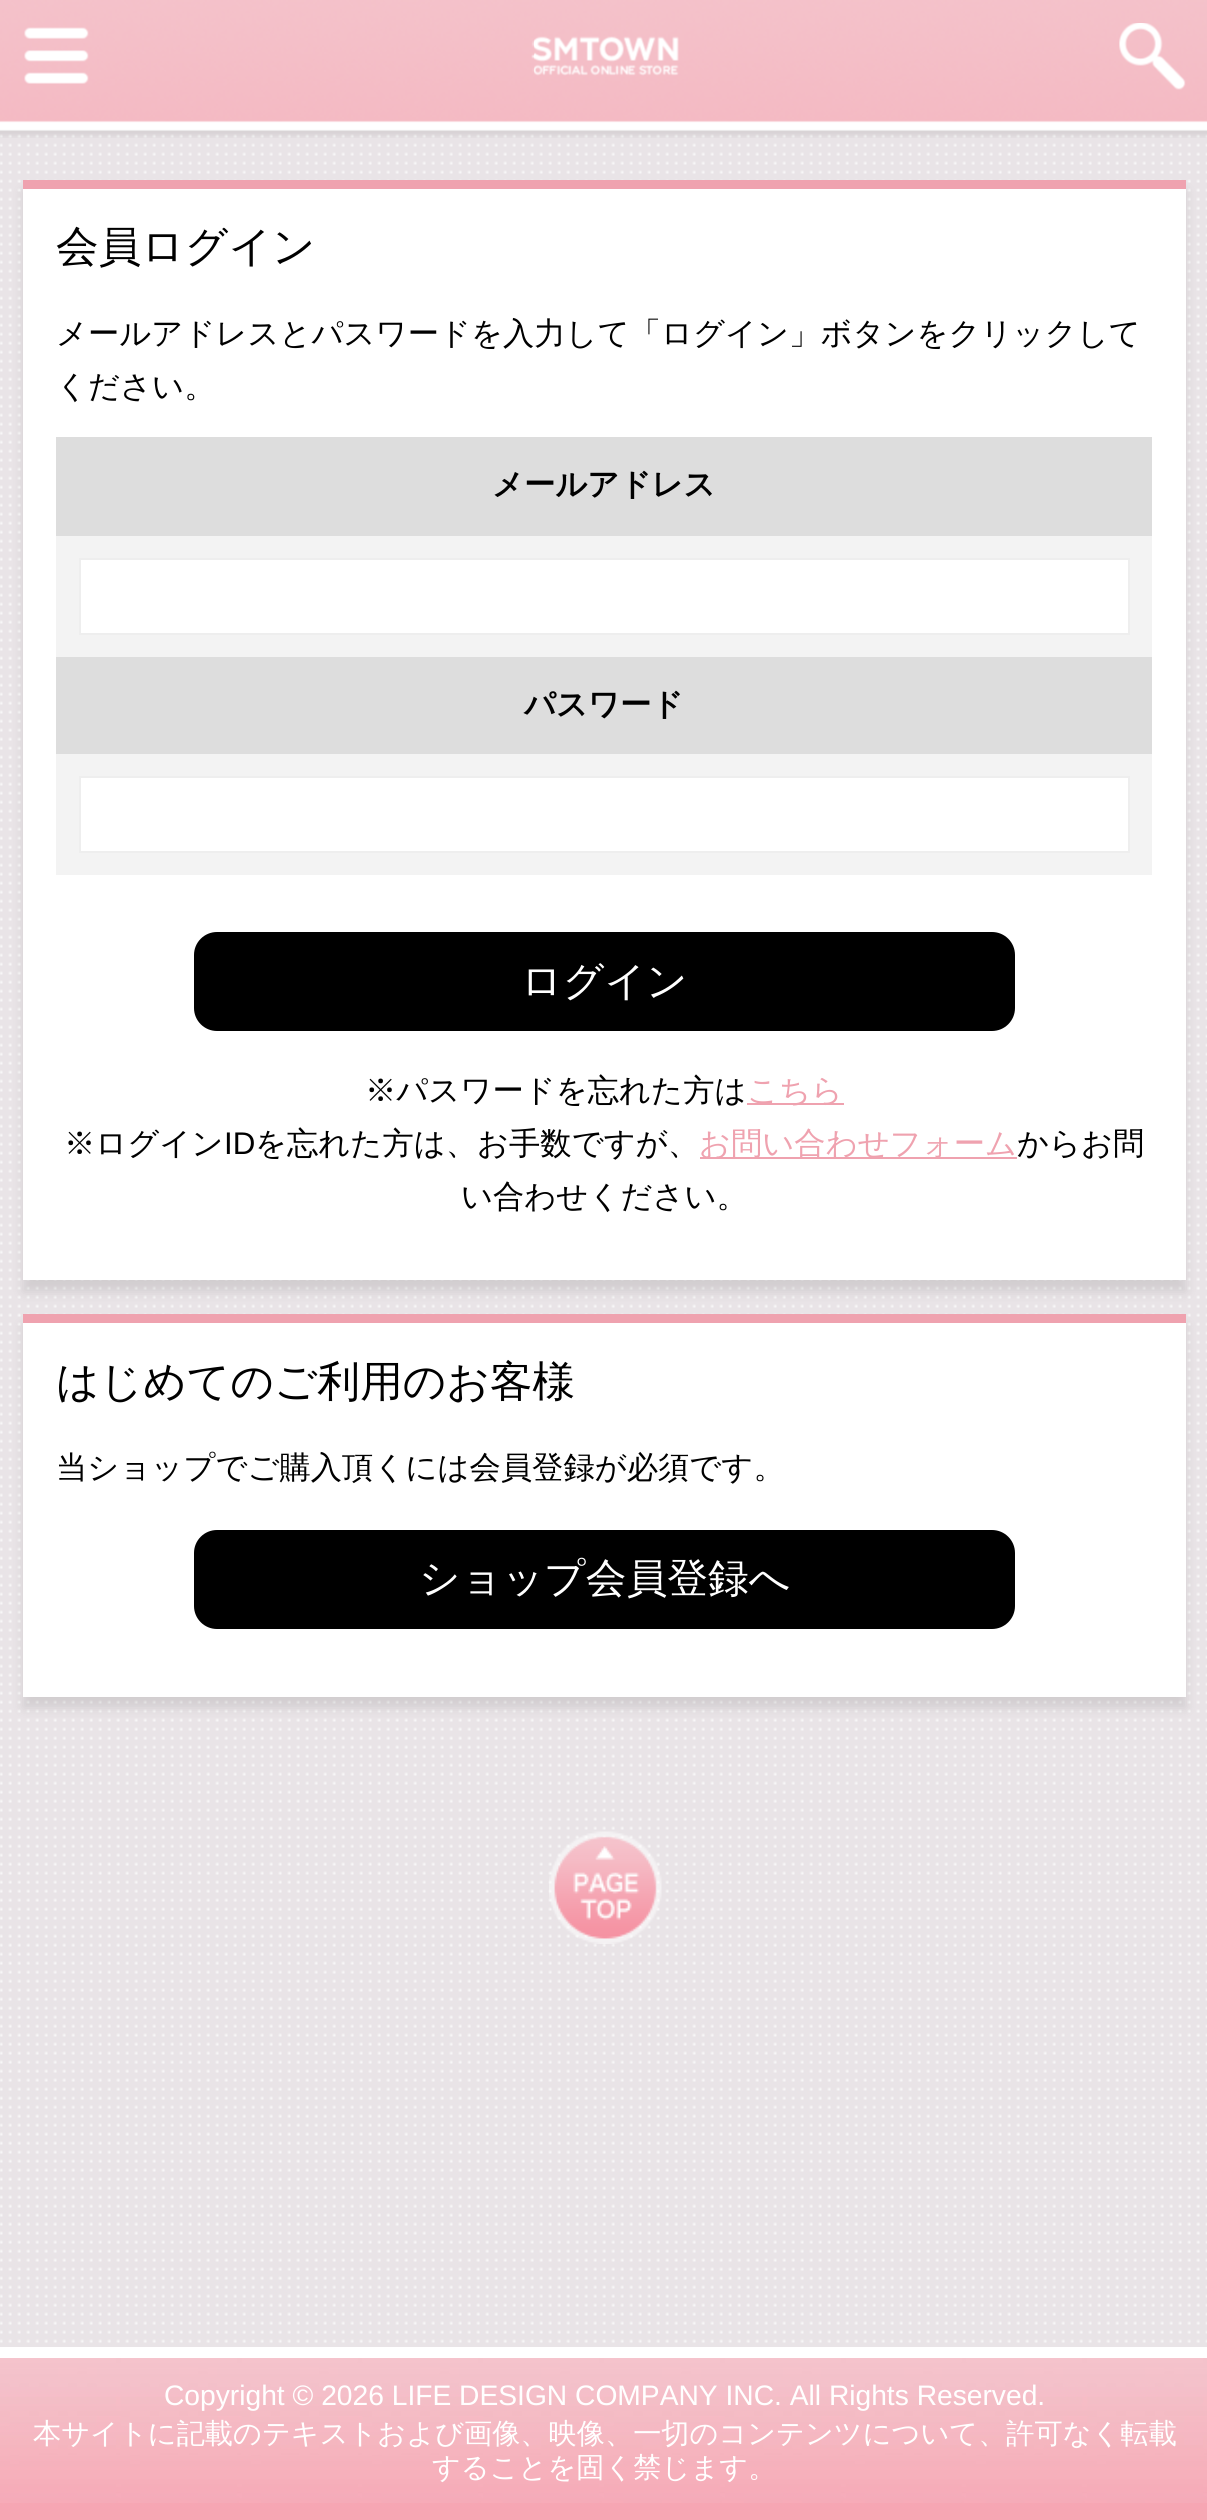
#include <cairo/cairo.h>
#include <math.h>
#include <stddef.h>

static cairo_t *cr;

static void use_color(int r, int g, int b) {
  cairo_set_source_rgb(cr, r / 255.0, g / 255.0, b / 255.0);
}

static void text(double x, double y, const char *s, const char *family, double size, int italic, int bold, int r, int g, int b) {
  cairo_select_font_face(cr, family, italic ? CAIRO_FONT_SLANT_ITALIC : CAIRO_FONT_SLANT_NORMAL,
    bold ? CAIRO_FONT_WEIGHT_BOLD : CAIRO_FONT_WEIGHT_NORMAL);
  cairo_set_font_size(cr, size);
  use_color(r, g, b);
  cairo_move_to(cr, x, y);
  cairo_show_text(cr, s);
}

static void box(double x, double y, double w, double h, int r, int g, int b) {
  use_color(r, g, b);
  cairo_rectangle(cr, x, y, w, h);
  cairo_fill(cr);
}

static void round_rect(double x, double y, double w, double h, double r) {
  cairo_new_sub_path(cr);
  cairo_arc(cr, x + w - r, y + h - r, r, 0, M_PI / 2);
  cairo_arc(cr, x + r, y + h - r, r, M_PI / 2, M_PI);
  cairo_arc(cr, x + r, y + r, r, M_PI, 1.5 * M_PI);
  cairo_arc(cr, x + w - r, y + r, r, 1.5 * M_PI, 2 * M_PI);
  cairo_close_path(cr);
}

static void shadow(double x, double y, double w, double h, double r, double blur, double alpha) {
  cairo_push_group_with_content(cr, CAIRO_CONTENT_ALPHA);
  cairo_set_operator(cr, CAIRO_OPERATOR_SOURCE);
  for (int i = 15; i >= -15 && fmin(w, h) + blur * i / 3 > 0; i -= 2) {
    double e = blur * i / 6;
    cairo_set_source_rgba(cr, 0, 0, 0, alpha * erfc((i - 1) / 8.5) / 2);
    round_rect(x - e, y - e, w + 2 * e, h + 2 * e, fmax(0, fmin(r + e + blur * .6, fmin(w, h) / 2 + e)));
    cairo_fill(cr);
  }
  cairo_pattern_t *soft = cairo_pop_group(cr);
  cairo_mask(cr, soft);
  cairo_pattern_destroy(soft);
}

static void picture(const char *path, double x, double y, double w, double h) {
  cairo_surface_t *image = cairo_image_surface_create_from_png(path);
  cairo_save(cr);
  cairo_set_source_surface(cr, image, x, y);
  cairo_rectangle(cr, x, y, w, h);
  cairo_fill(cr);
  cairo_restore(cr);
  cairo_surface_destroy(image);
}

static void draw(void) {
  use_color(255, 255, 255);
  cairo_paint(cr);
  picture("img_01.png", 0, 129, 1207, 2218);
  picture("img_02.png", 0, 0, 1207, 138);
  picture("img_03.png", 24, 27, 65, 57);
  picture("img_04.png", 531, 36, 148, 40);
  picture("img_05.png", 1119, 23, 67, 67);
  use_color(0, 0, 0);
  shadow(23, 191, 1163, 1101, 0, 5.5, 0.1);
  box(23, 189, 1163, 1091, 255, 255, 255);
  box(23, 180, 1163, 9, 239, 162, 175);
  box(56, 437, 1096, 99, 221, 221, 221);
  box(56, 536, 1096, 121, 243, 243, 243);
  use_color(255, 255, 255);
  cairo_rectangle(cr, 80, 559, 1049, 75);
  cairo_fill_preserve(cr);
  use_color(238, 238, 238);
  cairo_stroke(cr);
  box(56, 657, 1096, 97, 221, 221, 221);
  box(56, 754, 1096, 121, 243, 243, 243);
  use_color(255, 255, 255);
  cairo_rectangle(cr, 80, 777, 1049, 75);
  cairo_fill_preserve(cr);
  use_color(238, 238, 238);
  cairo_stroke(cr);
  use_color(0, 0, 0);
  round_rect(194, 932, 821, 99, 23);
  cairo_fill(cr);
  box(747, 1103, 97, 2, 239, 162, 175);
  box(700, 1157, 317, 2, 239, 162, 175);
  use_color(0, 0, 0);
  shadow(23, 1325, 1163, 383, 0, 5.5, 0.1);
  box(23, 1323, 1163, 374, 255, 255, 255);
  box(23, 1314, 1163, 9, 239, 162, 175);
  use_color(0, 0, 0);
  round_rect(194, 1530, 821, 99, 23);
  cairo_fill(cr);
  picture("img_06.png", 549, 1831, 113, 113);
  box(0, 2503, 1207, 17, 246, 166, 179);
  picture("img_07.png", 0, 2358, 1207, 145);
  text(56, 261, "会員ログイン", "WenQuanYi Zen Hei Medium", 42.6, 0, 0, 0, 0, 0);
  text(56, 344, "メールアドレスとパスワードを入力して「ログイン」ボタンをクリックして", "WenQuanYi Zen Hei Medium", 31.3, 0, 0, 0, 0, 0);
  text(56, 397, "ください。", "WenQuanYi Zen Hei Medium", 31.3, 0, 0, 0, 0, 0);
  text(492, 495, "メールアドレス", "WenQuanYi Zen Hei", 31.3, 0, 1, 0, 0, 0);
  text(524, 715, "パスワード", "WenQuanYi Zen Hei", 31.3, 0, 1, 0, 0, 0);
  text(521, 995, "ログイン", "WenQuanYi Zen Hei Medium", 40.75, 0, 0, 255, 255, 255);
  text(365, 1101, "※パスワードを忘れた方は", "WenQuanYi Zen Hei Medium", 31.3, 0, 0, 0, 0, 0);
  text(747, 1101, "こちら", "WenQuanYi Zen Hei Medium", 31.3, 0, 0, 239, 162, 175);
  text(64, 1154, "※ログイン", "WenQuanYi Zen Hei Medium", 31.3, 0, 0, 0, 0, 0);
  text(224, 1154, "ID", "Liberation Sans", 31.3, 0, 0, 0, 0, 0);
  text(255, 1154, "を忘れた方は、お手数ですが、", "WenQuanYi Zen Hei Medium", 31.3, 0, 0, 0, 0, 0);
  text(699, 1154, "お問い合わせフォーム", "WenQuanYi Zen Hei Medium", 31.3, 0, 0, 239, 162, 175);
  text(1017, 1154, "からお問", "WenQuanYi Zen Hei Medium", 31.3, 0, 0, 0, 0, 0);
  text(461, 1207, "い合わせください。", "WenQuanYi Zen Hei Medium", 31.3, 0, 0, 0, 0, 0);
  text(56, 1396, "はじめてのご利用のお客様", "WenQuanYi Zen Hei Medium", 42.6, 0, 0, 0, 0, 0);
  text(56, 1478, "当ショップでご購入頂くには会員登録が必須です。", "WenQuanYi Zen Hei Medium", 31.3, 0, 0, 0, 0, 0);
  text(419, 1592, "ショップ会員登録へ", "WenQuanYi Zen Hei Medium", 40.75, 0, 0, 255, 255, 255);
  text(164, 2405, "Copyright © 2026 LIFE DESIGN COMPANY INC. All Rights Reserved.", "Liberation Sans", 28.2, 0, 0, 255, 255, 255);
  text(33, 2443, "本サイトに記載のテキストおよび画像、映像、一切のコンテンツについて、許可なく転載", "WenQuanYi Zen Hei Medium", 28.2, 0, 0, 255, 255, 255);
  text(432, 2477, "することを固く禁じます。", "WenQuanYi Zen Hei Medium", 28.2, 0, 0, 255, 255, 255);
}

int main(void) {
  cairo_surface_t *surface = cairo_image_surface_create(CAIRO_FORMAT_RGB24, 1207, 2520);
  cr = cairo_create(surface);
  cairo_font_options_t *options = cairo_font_options_create();
  cairo_font_options_set_hint_metrics(options, CAIRO_HINT_METRICS_OFF);
  cairo_font_options_set_hint_style(options, CAIRO_HINT_STYLE_NONE);
  cairo_set_font_options(cr, options);
  cairo_set_miter_limit(cr, 4);
  draw();
  cairo_surface_write_to_png(surface, "out.png");
  cairo_font_options_destroy(options);
  cairo_destroy(cr);
  cairo_surface_destroy(surface);
  return 0;
}
